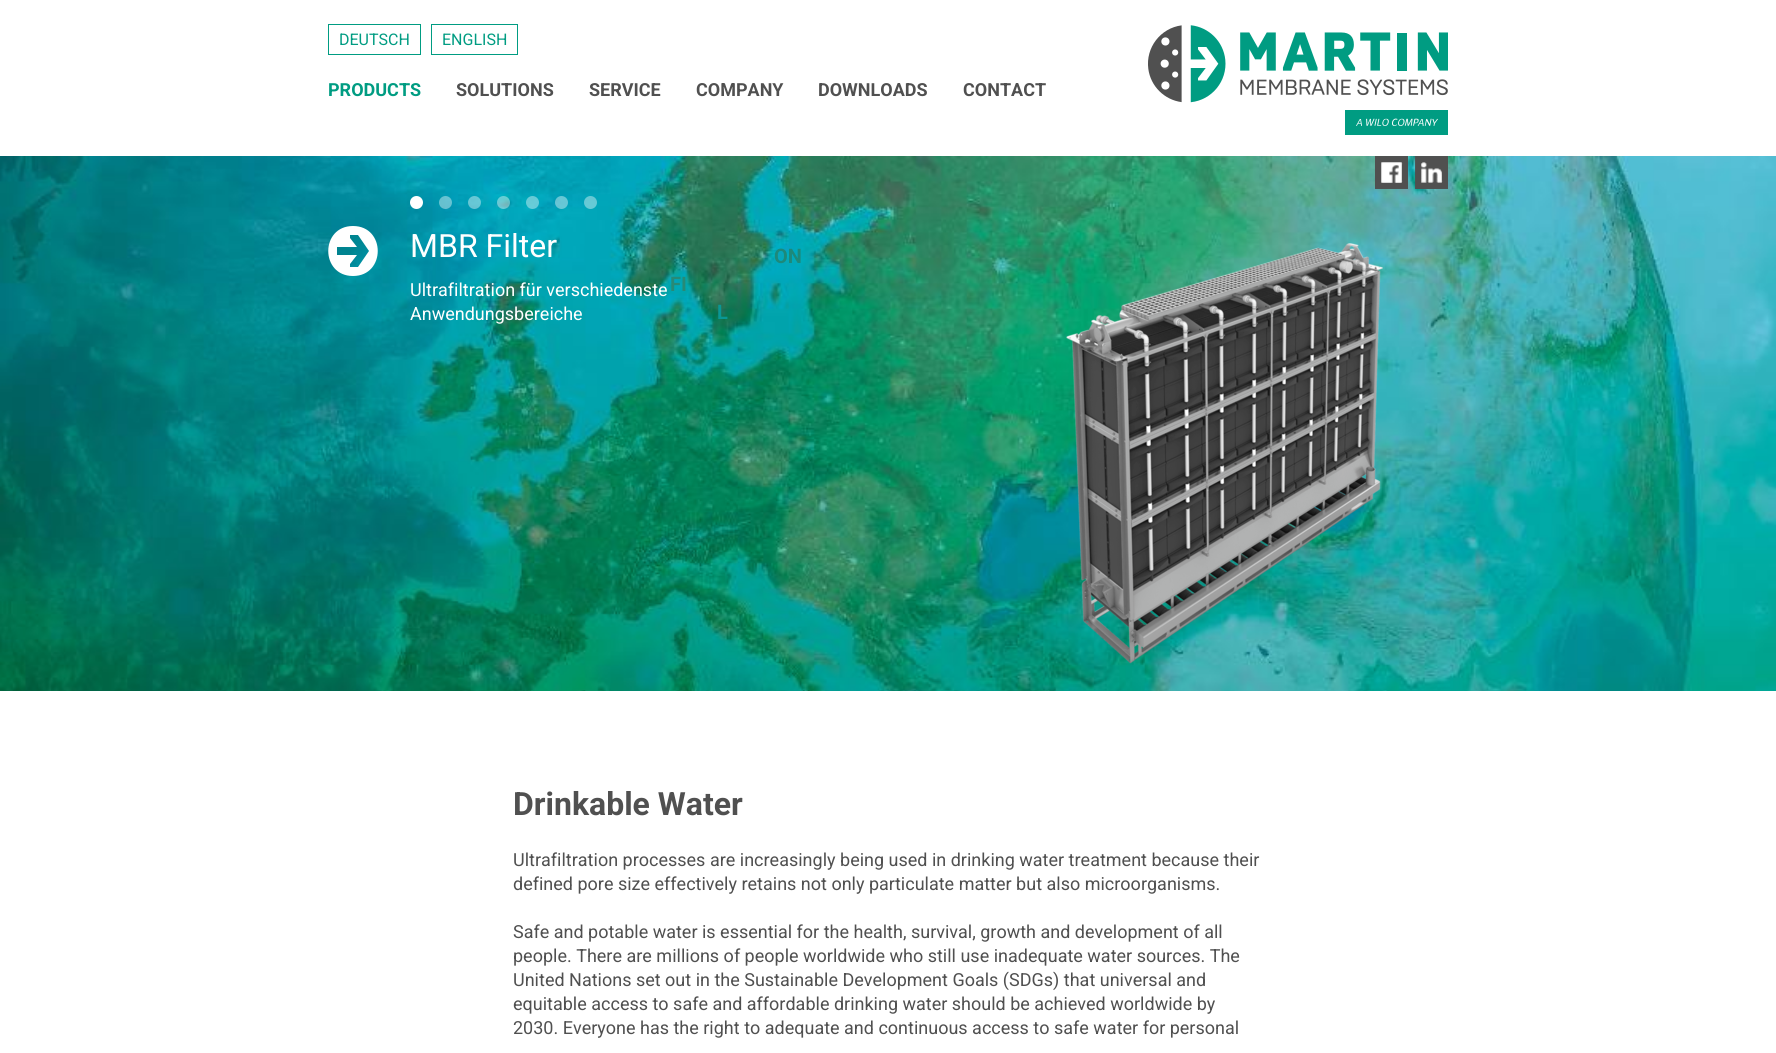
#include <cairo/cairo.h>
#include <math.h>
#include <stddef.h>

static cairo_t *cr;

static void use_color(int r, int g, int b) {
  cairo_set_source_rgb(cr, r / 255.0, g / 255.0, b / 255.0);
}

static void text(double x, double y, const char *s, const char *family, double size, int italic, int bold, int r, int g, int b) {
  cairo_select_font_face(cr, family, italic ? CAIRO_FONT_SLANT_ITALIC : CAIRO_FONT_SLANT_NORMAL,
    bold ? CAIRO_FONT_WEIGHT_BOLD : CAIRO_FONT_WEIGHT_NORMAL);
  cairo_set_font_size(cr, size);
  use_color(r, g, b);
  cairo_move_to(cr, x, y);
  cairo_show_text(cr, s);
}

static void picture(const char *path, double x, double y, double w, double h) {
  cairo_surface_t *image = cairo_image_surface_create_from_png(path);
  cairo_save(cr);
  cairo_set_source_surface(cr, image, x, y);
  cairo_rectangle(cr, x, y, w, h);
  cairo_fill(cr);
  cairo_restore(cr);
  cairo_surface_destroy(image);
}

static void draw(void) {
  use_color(255, 255, 255);
  cairo_paint(cr);
  cairo_rectangle(cr, 328.5, 24.5, 92, 30);
  use_color(0, 156, 130);
  cairo_set_line_width(cr, 1);
  cairo_stroke(cr);
  cairo_rectangle(cr, 431.5, 24.5, 86, 30);
  cairo_stroke(cr);
  picture("img_01.png", 1148, 25, 300, 110);
  picture("img_02.png", 0, 156, 1776, 535);
  picture("img_03.png", 1375, 156, 33, 33);
  picture("img_04.png", 1415, 156, 33, 33);
  use_color(255, 255, 255);
  cairo_arc(cr, 416.5, 202.5, 6.5, 0, 2 * M_PI);
  cairo_fill(cr);
  cairo_set_source_rgba(cr, 1, 1, 1, 0.4);
  cairo_arc(cr, 445.5, 202.5, 6.5, 0, 2 * M_PI);
  cairo_fill(cr);
  cairo_arc(cr, 474.5, 202.5, 6.5, 0, 2 * M_PI);
  cairo_fill(cr);
  cairo_arc(cr, 503.5, 202.5, 6.5, 0, 2 * M_PI);
  cairo_fill(cr);
  cairo_arc(cr, 532.5, 202.5, 6.5, 0, 2 * M_PI);
  cairo_fill(cr);
  cairo_arc(cr, 561.5, 202.5, 6.5, 0, 2 * M_PI);
  cairo_fill(cr);
  cairo_arc(cr, 590.5, 202.5, 6.5, 0, 2 * M_PI);
  cairo_fill(cr);
  use_color(255, 255, 255);
  cairo_new_path(cr);
  cairo_move_to(cr, 353, 226);
  cairo_curve_to(cr, 320, 226, 320, 276, 353, 276);
  cairo_curve_to(cr, 386, 276, 386, 226, 353, 226);
  cairo_move_to(cr, 358, 267);
  cairo_line_to(cr, 350, 267);
  cairo_line_to(cr, 350, 264);
  cairo_line_to(cr, 357, 255);
  cairo_line_to(cr, 337, 255);
  cairo_line_to(cr, 337, 247);
  cairo_line_to(cr, 357, 247);
  cairo_line_to(cr, 350, 238);
  cairo_line_to(cr, 350, 235);
  cairo_line_to(cr, 358, 235);
  cairo_line_to(cr, 369, 251);
  cairo_close_path(cr);
  cairo_fill(cr);
  picture("img_05.png", 1066, 243, 317, 421);
  text(339, 45, "DEUTSCH", "Roboto", 16, 0, 0, 0, 156, 130);
  text(442, 45, "ENGLISH", "Roboto", 16, 0, 0, 0, 156, 130);
  text(328, 96, "PRODUCTS", "Roboto", 18, 0, 1, 0, 156, 130);
  text(456, 96, "SOLUTIONS", "Roboto", 18, 0, 1, 80, 80, 80);
  text(589, 96, "SERVICE", "Roboto", 18, 0, 1, 80, 80, 80);
  text(696, 96, "COMPANY", "Roboto", 18, 0, 1, 80, 80, 80);
  text(818, 96, "DOWNLOADS", "Roboto", 18, 0, 1, 80, 80, 80);
  text(963, 96, "CONTACT", "Roboto", 18, 0, 1, 80, 80, 80);
  text(410, 257, "MBR Filter", "Roboto", 32, 0, 0, 255, 255, 255);
  text(410, 296, "Ultrafiltration für verschiedenste", "Roboto", 18, 0, 0, 255, 255, 255);
  text(410, 320, "Anwendungsbereiche", "Roboto", 18, 0, 0, 255, 255, 255);
  text(670, 291, "FI", "Roboto", 20, 0, 1, 39, 138, 118);
  text(774, 263, "ON", "Roboto", 20, 0, 1, 29, 137, 122);
  text(717, 319, "L", "Roboto", 20, 0, 1, 9, 151, 149);
  text(513, 815, "Drinkable Water", "Roboto", 32, 0, 1, 80, 80, 80);
  text(513, 866, "Ultrafiltration processes are increasingly being used in drinking water treatment because their", "Roboto", 18, 0, 0, 80, 80, 80);
  text(513, 890, "defined pore size effectively retains not only particulate matter but also microorganisms.", "Roboto", 18, 0, 0, 80, 80, 80);
  text(513, 938, "Safe and potable water is essential for the health, survival, growth and development of all", "Roboto", 18, 0, 0, 80, 80, 80);
  text(513, 962, "people. There are millions of people worldwide who still use inadequate water sources. The", "Roboto", 18, 0, 0, 80, 80, 80);
  text(513, 986, "United Nations set out in the Sustainable Development Goals (SDGs) that universal and", "Roboto", 18, 0, 0, 80, 80, 80);
  text(513, 1010, "equitable access to safe and affordable drinking water should be achieved worldwide by", "Roboto", 18, 0, 0, 80, 80, 80);
  text(513, 1034, "2030. Everyone has the right to adequate and continuous access to safe water for personal", "Roboto", 18, 0, 0, 80, 80, 80);
}

int main(void) {
  cairo_surface_t *surface = cairo_image_surface_create(CAIRO_FORMAT_RGB24, 1776, 1053);
  cr = cairo_create(surface);
  cairo_font_options_t *options = cairo_font_options_create();
  cairo_font_options_set_hint_metrics(options, CAIRO_HINT_METRICS_OFF);
  cairo_font_options_set_hint_style(options, CAIRO_HINT_STYLE_NONE);
  cairo_set_font_options(cr, options);
  cairo_set_miter_limit(cr, 4);
  draw();
  cairo_surface_write_to_png(surface, "out.png");
  cairo_font_options_destroy(options);
  cairo_destroy(cr);
  cairo_surface_destroy(surface);
  return 0;
}
